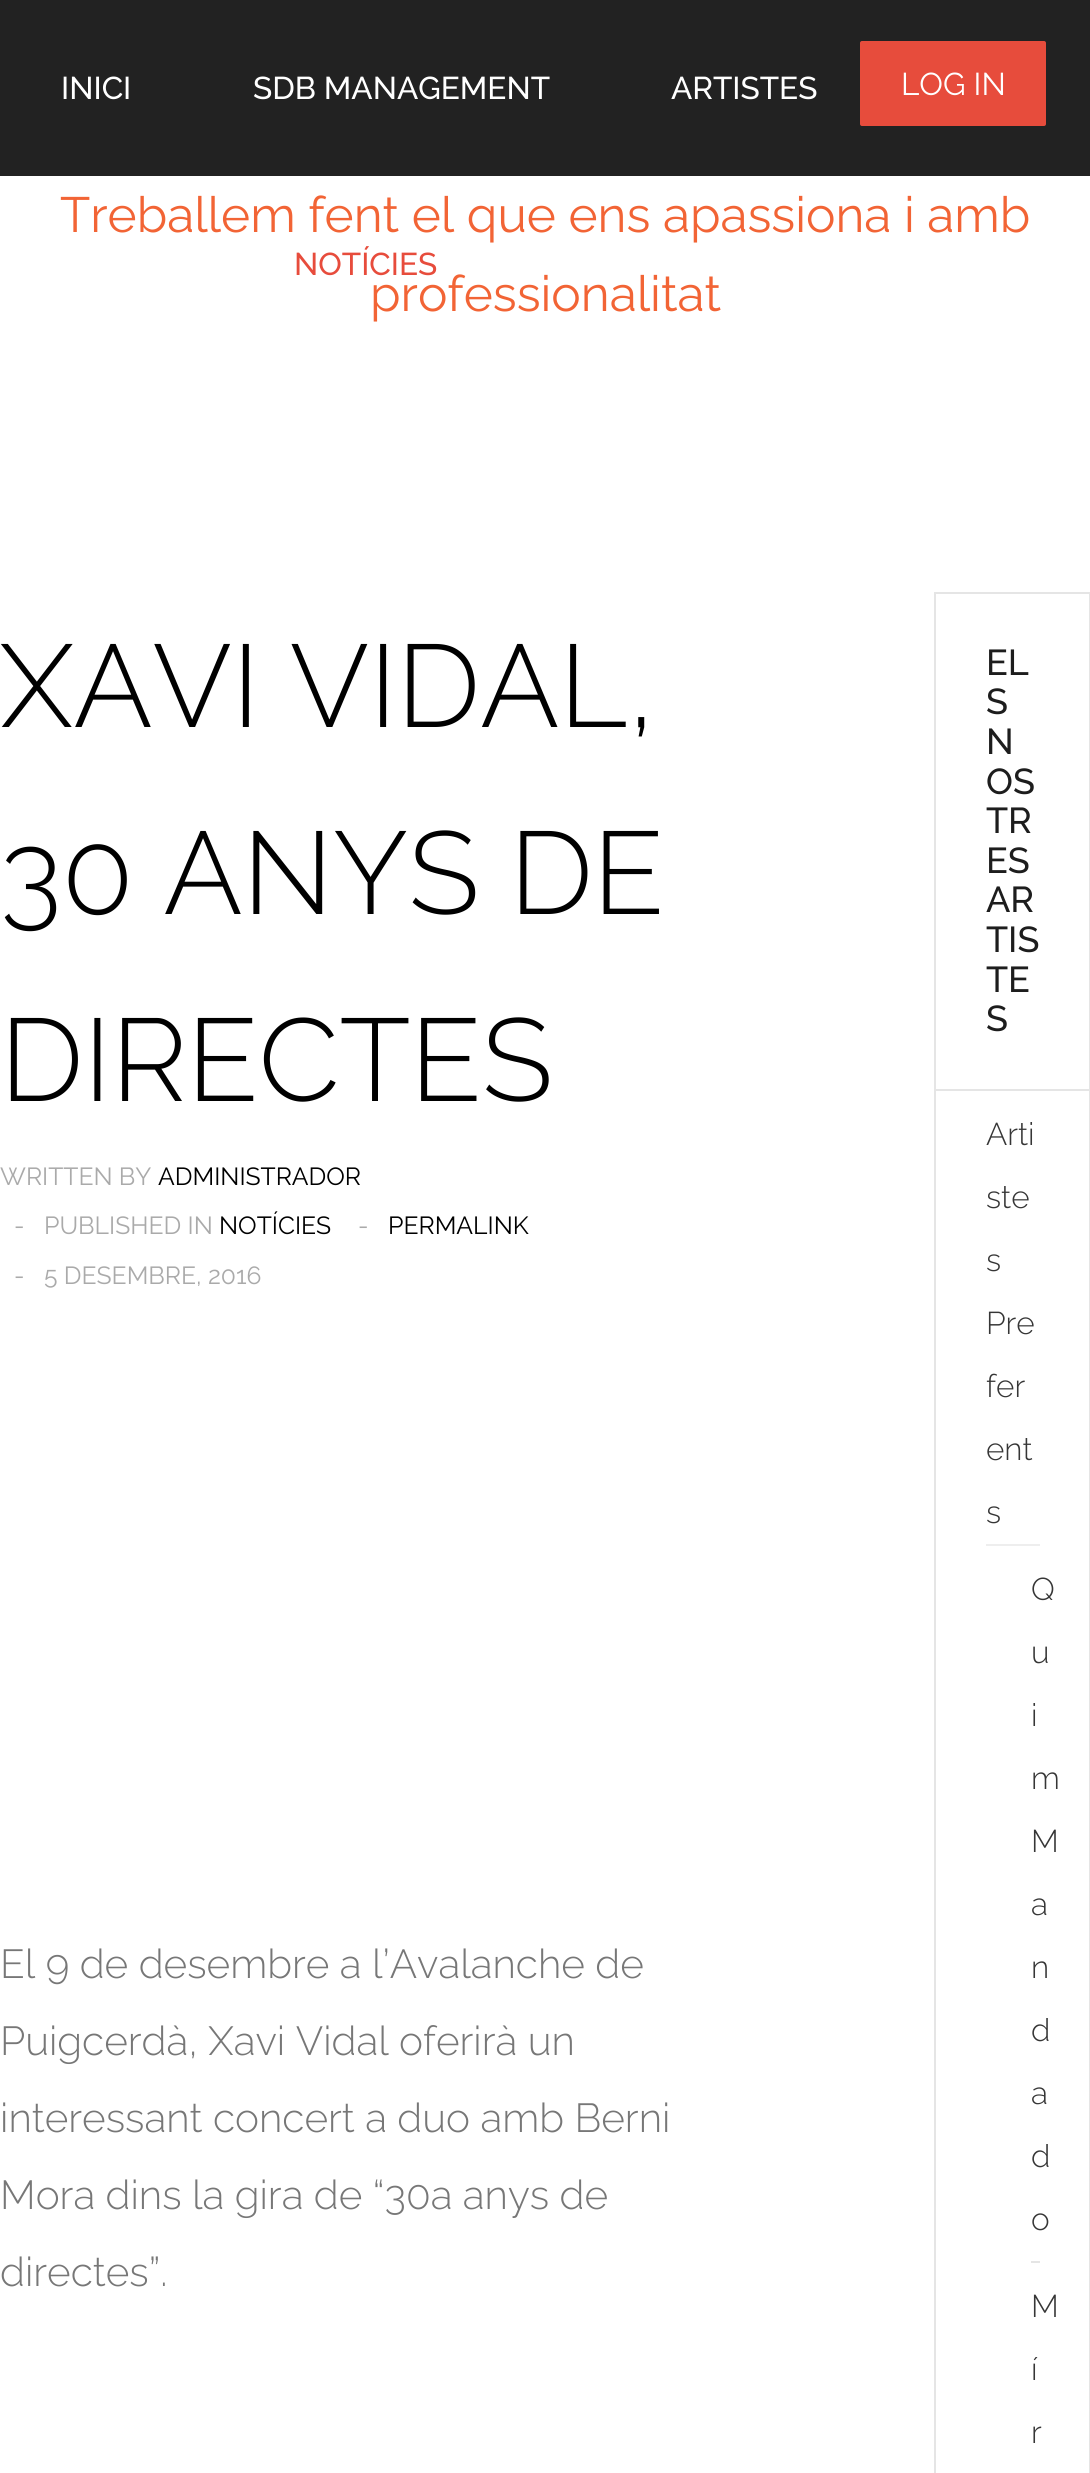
#include <cairo/cairo.h>
#include <math.h>
#include <stddef.h>

static cairo_t *cr;

static void use_color(int r, int g, int b) {
  cairo_set_source_rgb(cr, r / 255.0, g / 255.0, b / 255.0);
}

static void text(double x, double y, const char *s, const char *family, double size, int italic, int bold, int r, int g, int b) {
  cairo_select_font_face(cr, family, italic ? CAIRO_FONT_SLANT_ITALIC : CAIRO_FONT_SLANT_NORMAL,
    bold ? CAIRO_FONT_WEIGHT_BOLD : CAIRO_FONT_WEIGHT_NORMAL);
  cairo_set_font_size(cr, size);
  use_color(r, g, b);
  cairo_move_to(cr, x, y);
  cairo_show_text(cr, s);
}

static void box(double x, double y, double w, double h, int r, int g, int b) {
  use_color(r, g, b);
  cairo_rectangle(cr, x, y, w, h);
  cairo_fill(cr);
}

static void round_rect(double x, double y, double w, double h, double r) {
  cairo_new_sub_path(cr);
  cairo_arc(cr, x + w - r, y + h - r, r, 0, M_PI / 2);
  cairo_arc(cr, x + r, y + h - r, r, M_PI / 2, M_PI);
  cairo_arc(cr, x + r, y + r, r, M_PI, 1.5 * M_PI);
  cairo_arc(cr, x + w - r, y + r, r, 1.5 * M_PI, 2 * M_PI);
  cairo_close_path(cr);
}

static void draw(void) {
  use_color(255, 255, 255);
  cairo_paint(cr);
  box(0, 0, 1090, 176, 34, 34, 34);
  use_color(231, 76, 60);
  round_rect(860, 41, 186, 85, 2);
  cairo_fill(cr);
  cairo_rectangle(cr, 935, 593, 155, 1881);
  use_color(229, 229, 229);
  cairo_stroke(cr);
  box(936, 1089, 153, 2, 229, 229, 229);
  box(986, 1544, 54, 2, 238, 238, 238);
  box(1031, 2261, 9, 2, 229, 229, 229);
  text(61, 99, "INICI", "Raleway Medium", 31.5, 0, 0, 255, 255, 255);
  text(253, 99, "SDB MANAGEMENT", "Raleway Medium", 31.5, 0, 0, 255, 255, 255);
  text(671, 99, "ARTISTES", "Raleway Medium", 31.5, 0, 0, 255, 255, 255);
  text(294, 275, "NOTÍCIES", "Raleway Medium", 31.5, 0, 0, 231, 76, 60);
  text(901, 95, "LOG IN", "Raleway", 31.5, 0, 0, 255, 255, 255);
  text(60, 232, "Treballem fent el que ens apassiona i amb", "Raleway", 49.5, 0, 0, 242, 100, 53);
  text(370, 311, "professionalitat", "Raleway", 49.5, 0, 0, 242, 100, 53);
  text(0, 727, "XAVI VIDAL,", "Raleway Light", 117, 0, 0, 0, 0, 0);
  text(0, 914, "30 ANYS DE", "Raleway Light", 117, 0, 0, 0, 0, 0);
  text(0, 1101, "DIRECTES", "Raleway Light", 117, 0, 0, 0, 0, 0);
  text(0, 1185, "WRITTEN BY", "Raleway", 24.75, 0, 0, 170, 170, 170);
  text(158, 1185, "ADMINISTRADOR", "Raleway", 24.75, 0, 0, 0, 0, 0);
  text(14, 1234, "-", "Raleway", 24.75, 0, 0, 170, 170, 170);
  text(44, 1234, "PUBLISHED IN", "Raleway", 24.75, 0, 0, 170, 170, 170);
  text(219, 1234, "NOTÍCIES", "Raleway", 24.75, 0, 0, 0, 0, 0);
  text(358, 1234, "-", "Raleway", 24.75, 0, 0, 170, 170, 170);
  text(388, 1234, "PERMALINK", "Raleway", 24.75, 0, 0, 0, 0, 0);
  text(14, 1284, "-", "Raleway", 24.75, 0, 0, 170, 170, 170);
  text(44, 1284, "5 DESEMBRE, 2016", "Raleway", 24.75, 0, 0, 170, 170, 170);
  text(0, 1978, "El 9 de desembre a l’Avalanche de", "Raleway Light", 40.5, 0, 0, 119, 119, 119);
  text(0, 2055, "Puigcerdà, Xavi Vidal oferirà un", "Raleway Light", 40.5, 0, 0, 119, 119, 119);
  text(0, 2132, "interessant concert a duo amb Berni", "Raleway Light", 40.5, 0, 0, 119, 119, 119);
  text(0, 2209, "Mora dins la gira de “30a anys de", "Raleway Light", 40.5, 0, 0, 119, 119, 119);
  text(0, 2286, "directes”.", "Raleway Light", 40.5, 0, 0, 119, 119, 119);
  text(986, 675, "EL", "Raleway Medium", 36, 0, 0, 29, 29, 29);
  text(986, 714, "S", "Raleway Medium", 36, 0, 0, 29, 29, 29);
  text(986, 754, "N", "Raleway Medium", 36, 0, 0, 29, 29, 29);
  text(986, 794, "OS", "Raleway Medium", 36, 0, 0, 29, 29, 29);
  text(986, 833, "TR", "Raleway Medium", 36, 0, 0, 29, 29, 29);
  text(986, 873, "ES", "Raleway Medium", 36, 0, 0, 29, 29, 29);
  text(986, 912, "AR", "Raleway Medium", 36, 0, 0, 29, 29, 29);
  text(986, 952, "TIS", "Raleway Medium", 36, 0, 0, 29, 29, 29);
  text(986, 992, "TE", "Raleway Medium", 36, 0, 0, 29, 29, 29);
  text(986, 1031, "S", "Raleway Medium", 36, 0, 0, 29, 29, 29);
  text(986, 1145, "Arti", "Raleway Light", 31.5, 0, 0, 54, 54, 54);
  text(986, 1208, "ste", "Raleway Light", 31.5, 0, 0, 54, 54, 54);
  text(986, 1271, "s", "Raleway Light", 31.5, 0, 0, 54, 54, 54);
  text(986, 1334, "Pre", "Raleway Light", 31.5, 0, 0, 54, 54, 54);
  text(986, 1397, "fer", "Raleway Light", 31.5, 0, 0, 54, 54, 54);
  text(986, 1460, "ent", "Raleway Light", 31.5, 0, 0, 54, 54, 54);
  text(986, 1523, "s", "Raleway Light", 31.5, 0, 0, 54, 54, 54);
  text(1031, 1600, "Q", "Raleway Light", 31.5, 0, 0, 54, 54, 54);
  text(1031, 1663, "u", "Raleway Light", 31.5, 0, 0, 54, 54, 54);
  text(1031, 1726, "i", "Raleway Light", 31.5, 0, 0, 54, 54, 54);
  text(1031, 1789, "m", "Raleway Light", 31.5, 0, 0, 54, 54, 54);
  text(1031, 1852, "M", "Raleway Light", 31.5, 0, 0, 54, 54, 54);
  text(1031, 1915, "a", "Raleway Light", 31.5, 0, 0, 54, 54, 54);
  text(1031, 1978, "n", "Raleway Light", 31.5, 0, 0, 54, 54, 54);
  text(1031, 2041, "d", "Raleway Light", 31.5, 0, 0, 54, 54, 54);
  text(1031, 2104, "a", "Raleway Light", 31.5, 0, 0, 54, 54, 54);
  text(1031, 2167, "d", "Raleway Light", 31.5, 0, 0, 54, 54, 54);
  text(1031, 2230, "o", "Raleway Light", 31.5, 0, 0, 54, 54, 54);
  text(1031, 2317, "M", "Raleway Light", 31.5, 0, 0, 54, 54, 54);
  text(1031, 2380, "í", "Raleway Light", 31.5, 0, 0, 54, 54, 54);
  text(1031, 2443, "r", "Raleway Light", 31.5, 0, 0, 54, 54, 54);
}

int main(void) {
  cairo_surface_t *surface = cairo_image_surface_create(CAIRO_FORMAT_RGB24, 1090, 2473);
  cr = cairo_create(surface);
  cairo_font_options_t *options = cairo_font_options_create();
  cairo_font_options_set_hint_metrics(options, CAIRO_HINT_METRICS_OFF);
  cairo_font_options_set_hint_style(options, CAIRO_HINT_STYLE_NONE);
  cairo_set_font_options(cr, options);
  cairo_set_miter_limit(cr, 4);
  draw();
  cairo_surface_write_to_png(surface, "out.png");
  cairo_font_options_destroy(options);
  cairo_destroy(cr);
  cairo_surface_destroy(surface);
  return 0;
}
